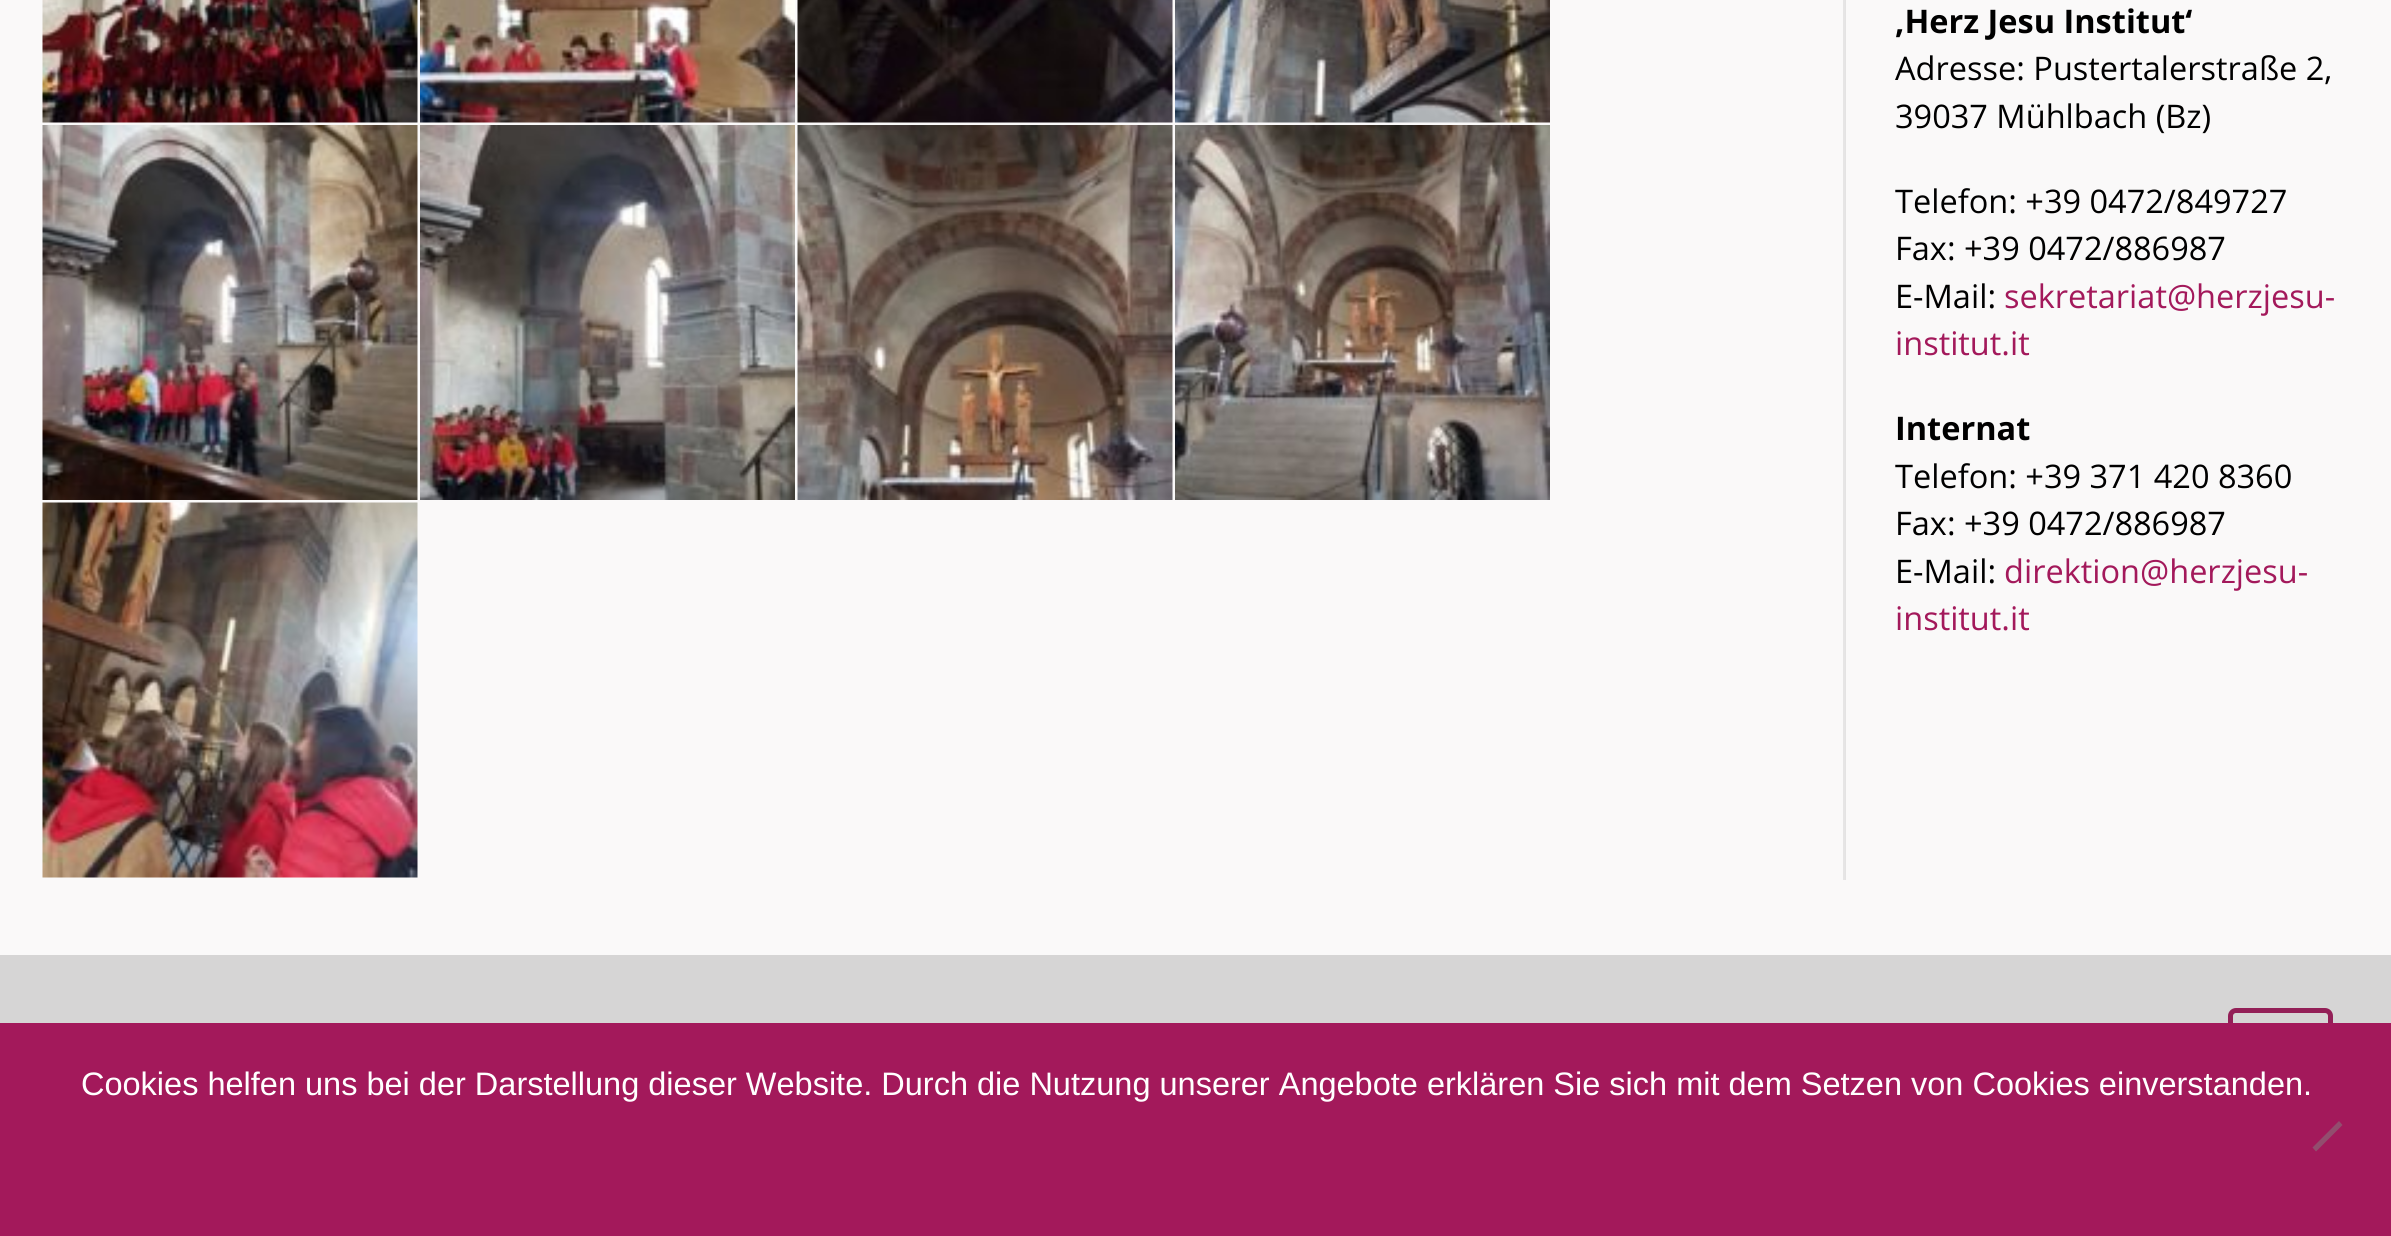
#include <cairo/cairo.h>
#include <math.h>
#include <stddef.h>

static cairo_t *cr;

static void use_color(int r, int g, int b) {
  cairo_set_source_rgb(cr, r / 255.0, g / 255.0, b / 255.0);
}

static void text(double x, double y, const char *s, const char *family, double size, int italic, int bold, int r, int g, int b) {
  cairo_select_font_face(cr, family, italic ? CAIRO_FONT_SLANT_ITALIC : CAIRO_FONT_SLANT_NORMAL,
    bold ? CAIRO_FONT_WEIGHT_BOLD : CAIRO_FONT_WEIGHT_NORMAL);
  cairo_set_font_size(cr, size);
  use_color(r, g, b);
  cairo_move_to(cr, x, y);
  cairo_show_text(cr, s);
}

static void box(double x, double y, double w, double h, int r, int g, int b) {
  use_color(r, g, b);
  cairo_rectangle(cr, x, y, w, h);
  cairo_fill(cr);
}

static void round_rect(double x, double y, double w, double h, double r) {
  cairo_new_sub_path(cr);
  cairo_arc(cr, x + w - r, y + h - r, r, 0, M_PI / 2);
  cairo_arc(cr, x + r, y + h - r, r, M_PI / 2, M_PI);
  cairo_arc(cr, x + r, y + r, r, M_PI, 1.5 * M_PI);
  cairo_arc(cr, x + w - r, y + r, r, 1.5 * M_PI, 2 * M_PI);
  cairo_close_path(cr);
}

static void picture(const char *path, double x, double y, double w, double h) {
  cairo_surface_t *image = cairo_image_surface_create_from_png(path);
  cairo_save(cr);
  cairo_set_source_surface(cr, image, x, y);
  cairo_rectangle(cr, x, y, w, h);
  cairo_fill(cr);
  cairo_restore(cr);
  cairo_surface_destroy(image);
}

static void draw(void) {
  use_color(250, 249, 249);
  cairo_paint(cr);
  picture("img_01.png", 42, 0, 376, 123);
  picture("img_02.png", 420, 0, 375, 123);
  picture("img_03.png", 797, 0, 376, 123);
  picture("img_04.png", 1175, 0, 375, 123);
  picture("img_05.png", 42, 125, 376, 375);
  picture("img_06.png", 420, 125, 375, 375);
  picture("img_07.png", 797, 125, 376, 375);
  picture("img_08.png", 1175, 125, 375, 375);
  picture("img_09.png", 42, 502, 376, 376);
  box(1843, 0, 2, 880, 230, 229, 229);
  box(1845, 0, 1, 880, 228, 227, 227);
  box(0, 955, 2391, 68, 214, 213, 213);
  round_rect(2230.5, 1010.5, 100, 100, 5.5);
  use_color(147, 31, 87);
  cairo_set_line_width(cr, 5);
  cairo_stroke(cr);
  box(0, 1023, 2391, 213, 163, 25, 91);
  use_color(146, 77, 110);
  cairo_new_path(cr);
  cairo_move_to(cr, 2339, 1121);
  cairo_line_to(cr, 2342.5, 1125);
  cairo_line_to(cr, 2316, 1151.5);
  cairo_line_to(cr, 2312.5, 1147.5);
  cairo_close_path(cr);
  cairo_fill(cr);
  text(1895, 33, "‚Herz Jesu Institut‘", "Open Sans", 32.5, 0, 1, 0, 0, 0);
  text(1895, 80, "Adresse: Pustertalerstraße 2,", "Open Sans", 32.5, 0, 0, 0, 0, 0);
  text(1895, 128, "39037 Mühlbach (Bz)", "Open Sans", 32.5, 0, 0, 0, 0, 0);
  text(1895, 213, "Telefon: +39 0472/849727", "Open Sans", 32.5, 0, 0, 0, 0, 0);
  text(1895, 260, "Fax: +39 0472/886987", "Open Sans", 32.5, 0, 0, 0, 0, 0);
  text(1895, 308, "E-Mail:", "Open Sans", 32.5, 0, 0, 0, 0, 0);
  text(2004, 308, "sekretariat@herzjesu-", "Open Sans", 32.5, 0, 0, 163, 25, 91);
  text(1895, 355, "institut.it", "Open Sans", 32.5, 0, 0, 163, 25, 91);
  text(1895, 440, "Internat", "Open Sans", 32.5, 0, 1, 0, 0, 0);
  text(1895, 488, "Telefon: +39 371 420 8360", "Open Sans", 32.5, 0, 0, 0, 0, 0);
  text(1895, 535, "Fax: +39 0472/886987", "Open Sans", 32.5, 0, 0, 0, 0, 0);
  text(1895, 583, "E-Mail:", "Open Sans", 32.5, 0, 0, 0, 0, 0);
  text(2004, 583, "direktion@herzjesu-", "Open Sans", 32.5, 0, 0, 163, 25, 91);
  text(1895, 630, "institut.it", "Open Sans", 32.5, 0, 0, 163, 25, 91);
  text(81, 1095, "Cookies helfen uns bei der Darstellung dieser Website. Durch die Nutzung unserer Angebote erklären Sie sich mit dem Setzen von Cookies einverstanden.", "Liberation Sans", 32.5, 0, 0, 255, 255, 255);
}

int main(void) {
  cairo_surface_t *surface = cairo_image_surface_create(CAIRO_FORMAT_RGB24, 2391, 1236);
  cr = cairo_create(surface);
  cairo_font_options_t *options = cairo_font_options_create();
  cairo_font_options_set_hint_metrics(options, CAIRO_HINT_METRICS_OFF);
  cairo_font_options_set_hint_style(options, CAIRO_HINT_STYLE_NONE);
  cairo_set_font_options(cr, options);
  cairo_set_miter_limit(cr, 4);
  draw();
  cairo_surface_write_to_png(surface, "out.png");
  cairo_font_options_destroy(options);
  cairo_destroy(cr);
  cairo_surface_destroy(surface);
  return 0;
}
